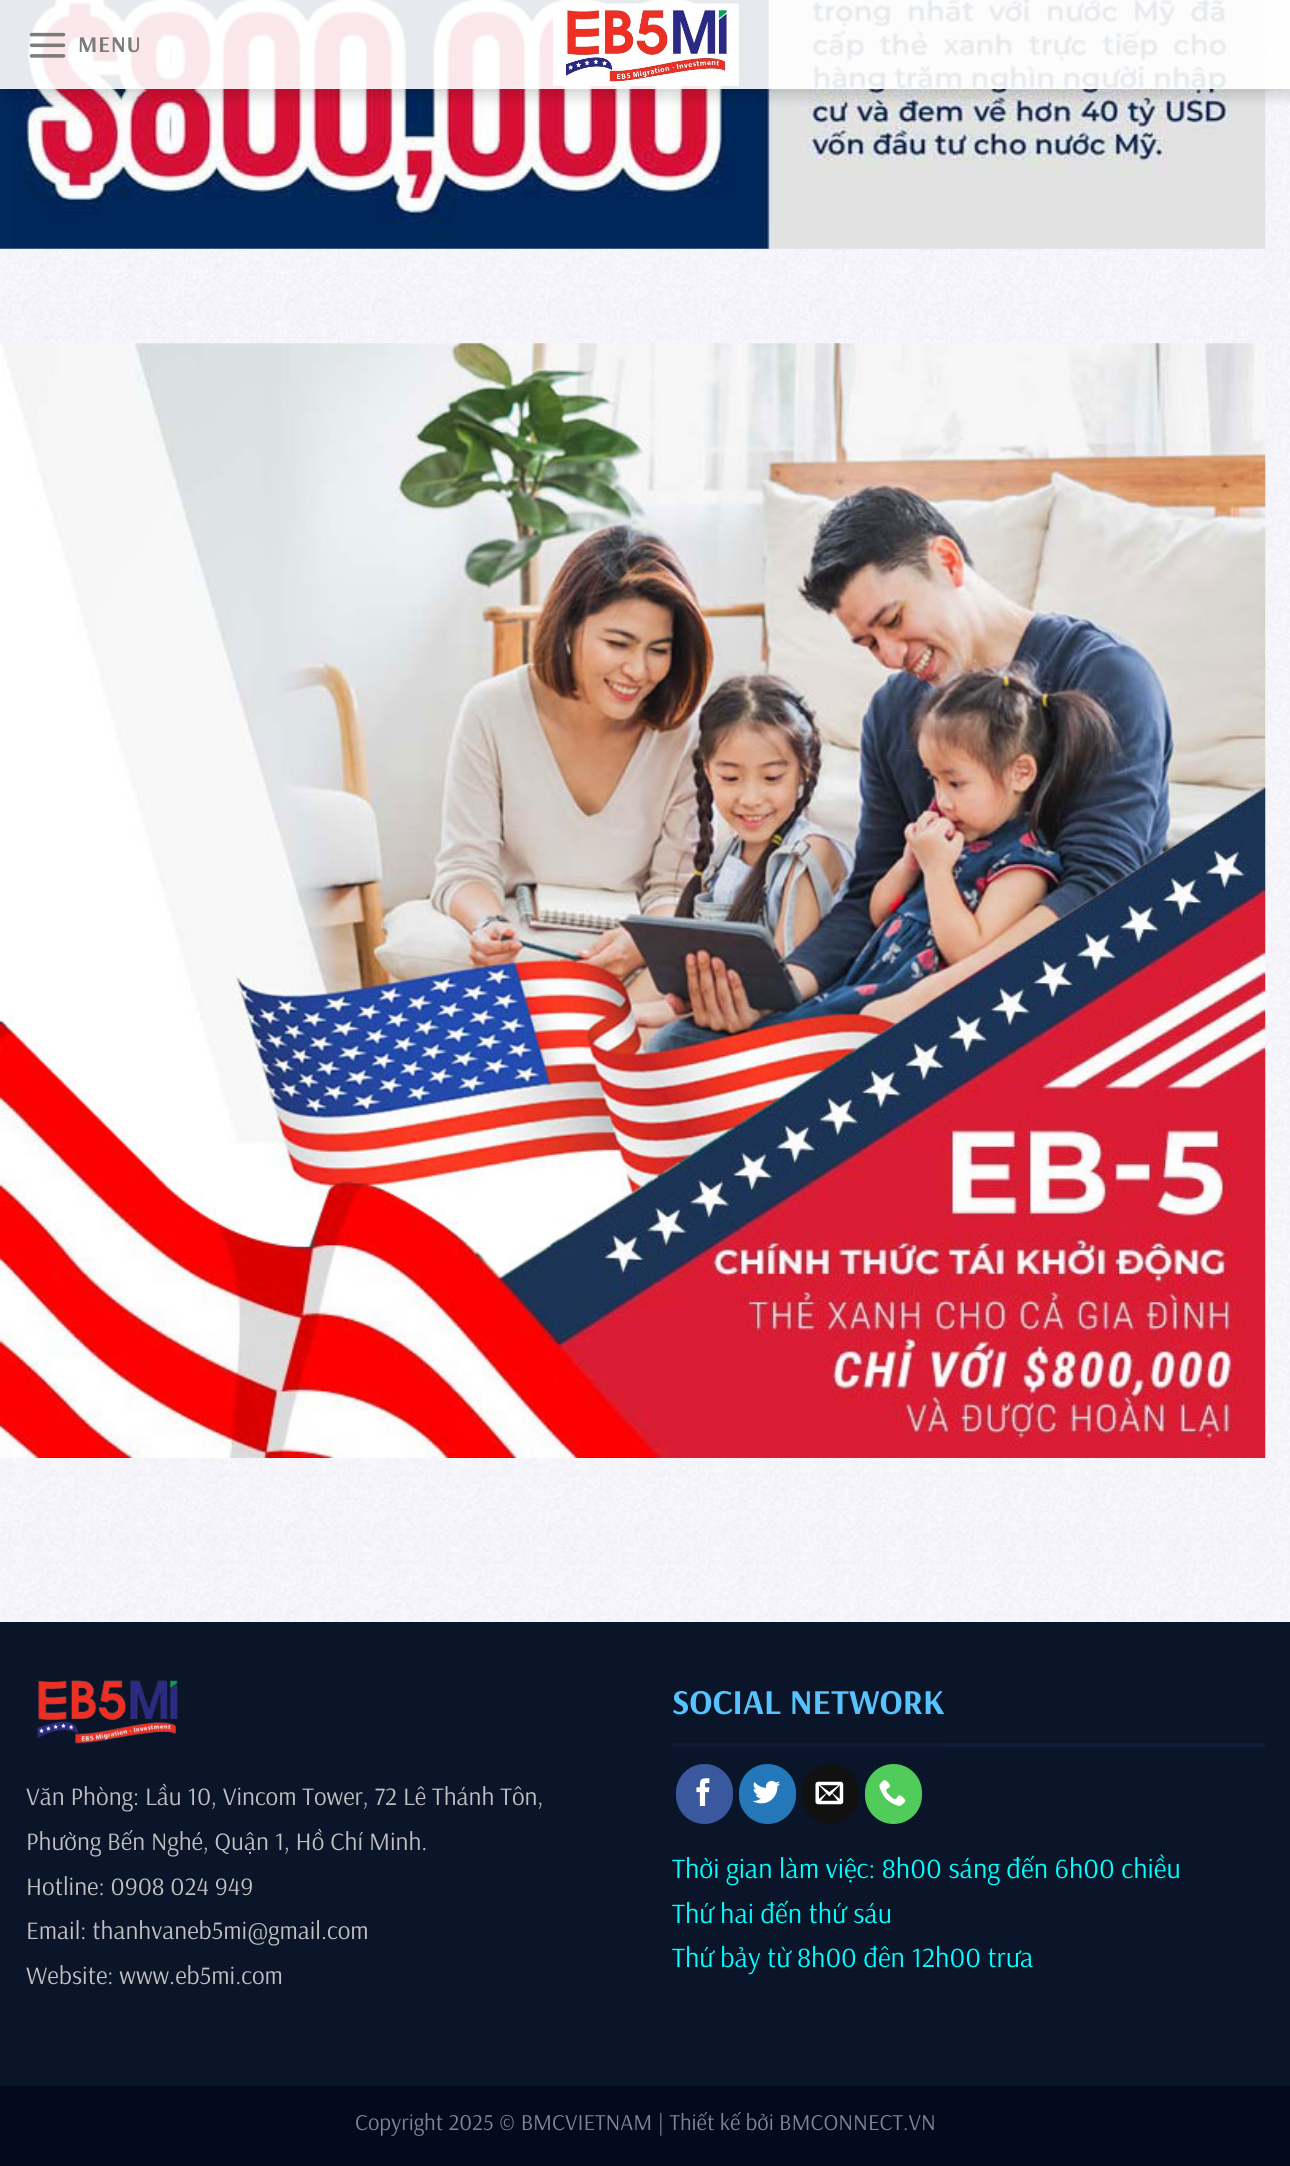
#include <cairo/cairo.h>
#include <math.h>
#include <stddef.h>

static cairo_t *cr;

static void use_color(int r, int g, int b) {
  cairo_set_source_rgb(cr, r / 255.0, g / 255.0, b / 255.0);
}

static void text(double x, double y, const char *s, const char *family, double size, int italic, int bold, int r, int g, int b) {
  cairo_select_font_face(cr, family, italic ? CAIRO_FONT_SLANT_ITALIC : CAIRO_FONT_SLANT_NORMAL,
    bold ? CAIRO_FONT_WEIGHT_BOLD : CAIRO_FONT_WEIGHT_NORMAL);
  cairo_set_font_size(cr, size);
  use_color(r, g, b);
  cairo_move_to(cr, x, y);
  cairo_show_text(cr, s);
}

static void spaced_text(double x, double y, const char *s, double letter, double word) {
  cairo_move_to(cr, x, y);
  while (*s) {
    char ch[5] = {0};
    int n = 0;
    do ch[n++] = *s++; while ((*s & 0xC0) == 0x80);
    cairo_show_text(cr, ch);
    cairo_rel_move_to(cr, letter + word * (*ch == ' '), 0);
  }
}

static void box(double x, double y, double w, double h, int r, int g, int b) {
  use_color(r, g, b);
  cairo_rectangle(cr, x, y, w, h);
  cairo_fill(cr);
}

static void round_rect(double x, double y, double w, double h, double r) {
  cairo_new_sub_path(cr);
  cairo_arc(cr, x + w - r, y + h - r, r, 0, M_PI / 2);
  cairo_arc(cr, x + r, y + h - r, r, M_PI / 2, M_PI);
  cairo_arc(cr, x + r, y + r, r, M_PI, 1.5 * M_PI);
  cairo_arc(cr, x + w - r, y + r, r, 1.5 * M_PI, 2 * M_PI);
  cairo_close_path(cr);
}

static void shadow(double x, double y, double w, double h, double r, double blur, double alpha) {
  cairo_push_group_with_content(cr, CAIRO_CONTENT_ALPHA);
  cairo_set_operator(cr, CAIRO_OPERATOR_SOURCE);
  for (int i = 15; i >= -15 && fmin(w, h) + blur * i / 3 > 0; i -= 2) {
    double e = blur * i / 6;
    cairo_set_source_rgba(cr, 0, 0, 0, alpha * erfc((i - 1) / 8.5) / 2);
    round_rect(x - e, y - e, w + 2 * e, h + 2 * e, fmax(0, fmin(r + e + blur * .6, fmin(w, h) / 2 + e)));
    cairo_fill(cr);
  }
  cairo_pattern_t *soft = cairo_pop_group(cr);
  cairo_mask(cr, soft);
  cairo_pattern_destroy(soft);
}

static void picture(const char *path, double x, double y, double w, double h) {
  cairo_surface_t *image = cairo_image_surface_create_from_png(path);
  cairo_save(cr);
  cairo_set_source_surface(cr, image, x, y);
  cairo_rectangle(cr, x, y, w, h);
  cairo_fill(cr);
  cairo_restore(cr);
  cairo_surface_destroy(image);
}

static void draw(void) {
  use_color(255, 255, 255);
  cairo_paint(cr);
  picture("img_01.png", 0, 0, 1290, 1622);
  picture("img_02.png", 0, 0, 1266, 249);
  picture("img_03.png", 0, 343, 1266, 1115);
  cairo_save(cr);
  cairo_rectangle(cr, 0, 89, 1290, 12);
  cairo_clip(cr);
  use_color(0, 0, 0);
  shadow(2, 2, 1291, 89, 0, 9, 0.15);
  cairo_restore(cr);
  cairo_set_source_rgba(cr, 1, 1, 1, 0.9);
  cairo_rectangle(cr, 0, 0, 1290, 89);
  cairo_fill(cr);
  cairo_save(cr);
  cairo_rectangle(cr, 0, 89, 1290, 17);
  cairo_clip(cr);
  use_color(0, 0, 0);
  shadow(2, 0, 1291, 89, 0, 17.5, 0.12);
  cairo_restore(cr);
  picture("img_04.png", 29, 32, 37, 26);
  picture("img_05.png", 553, 3, 186, 83);
  box(0, 1622, 1290, 464, 10, 21, 41);
  picture("img_06.png", 37, 1680, 141, 64);
  box(945, 1743, 320, 4, 17, 30, 55);
  box(672, 1743, 273, 4, 15, 27, 50);
  use_color(58, 88, 157);
  round_rect(677, 1765, 55, 58, 27.5);
  cairo_fill_preserve(cr);
  cairo_stroke(cr);
  picture("img_07.png", 696, 1778, 14, 28);
  use_color(36, 120, 186);
  round_rect(740, 1765, 55, 58, 27.5);
  cairo_fill_preserve(cr);
  cairo_stroke(cr);
  picture("img_08.png", 752, 1780, 28, 24);
  use_color(17, 17, 17);
  round_rect(803, 1765, 55, 58, 27.5);
  cairo_fill_preserve(cr);
  cairo_stroke(cr);
  picture("img_09.png", 815, 1781, 29, 24);
  use_color(81, 203, 90);
  round_rect(866, 1765, 55, 58, 27.5);
  cairo_fill_preserve(cr);
  cairo_stroke(cr);
  picture("img_10.png", 879, 1780, 27, 26);
  box(0, 2086, 1290, 80, 4, 10, 30);
  cairo_select_font_face(cr, "Arsenal", CAIRO_FONT_SLANT_NORMAL, CAIRO_FONT_WEIGHT_BOLD);
  cairo_set_font_size(cr, 22.5);
  use_color(125, 123, 123);
  spaced_text(78, 52, "MENU", 1, 0);
  text(26, 1805, "Văn Phòng: Lầu 10, Vincom Tower, 72 Lê Thánh Tôn,", "Arsenal", 25.2, 0, 0, 192, 192, 192);
  text(26, 1850, "Phường Bến Nghé, Quận 1, Hồ Chí Minh.", "Arsenal", 25.2, 0, 0, 192, 192, 192);
  text(26, 1895, "Hotline: 0908 024 949", "Arsenal", 25.2, 0, 0, 192, 192, 192);
  text(26, 1939, "Email: thanhvaneb5mi@gmail.com", "Arsenal", 25.2, 0, 0, 192, 192, 192);
  text(26, 1984, "Website: www.eb5mi.com", "Arsenal", 25.2, 0, 0, 192, 192, 192);
  text(672, 1714, "SOCIAL NETWORK", "Arsenal", 35, 0, 1, 86, 195, 255);
  text(672, 1878, "Thời gian làm việc: 8h00 sáng đến 6h00 chiều", "Arsenal", 28, 0, 0, 0, 255, 255);
  text(672, 1923, "Thứ hai đến thứ sáu", "Arsenal", 28, 0, 0, 0, 255, 255);
  text(672, 1967, "Thứ bảy từ 8h00 đên 12h00 trưa", "Arsenal", 28, 0, 0, 0, 255, 255);
  text(355, 2130, "Copyright 2025 © BMCVIETNAM | Thiết kế bởi BMCONNECT.VN", "Arsenal", 22.75, 0, 0, 130, 133, 143);
}

int main(void) {
  cairo_surface_t *surface = cairo_image_surface_create(CAIRO_FORMAT_RGB24, 1290, 2166);
  cr = cairo_create(surface);
  cairo_font_options_t *options = cairo_font_options_create();
  cairo_font_options_set_hint_metrics(options, CAIRO_HINT_METRICS_OFF);
  cairo_font_options_set_hint_style(options, CAIRO_HINT_STYLE_NONE);
  cairo_set_font_options(cr, options);
  cairo_set_miter_limit(cr, 4);
  draw();
  cairo_surface_write_to_png(surface, "out.png");
  cairo_font_options_destroy(options);
  cairo_destroy(cr);
  cairo_surface_destroy(surface);
  return 0;
}
